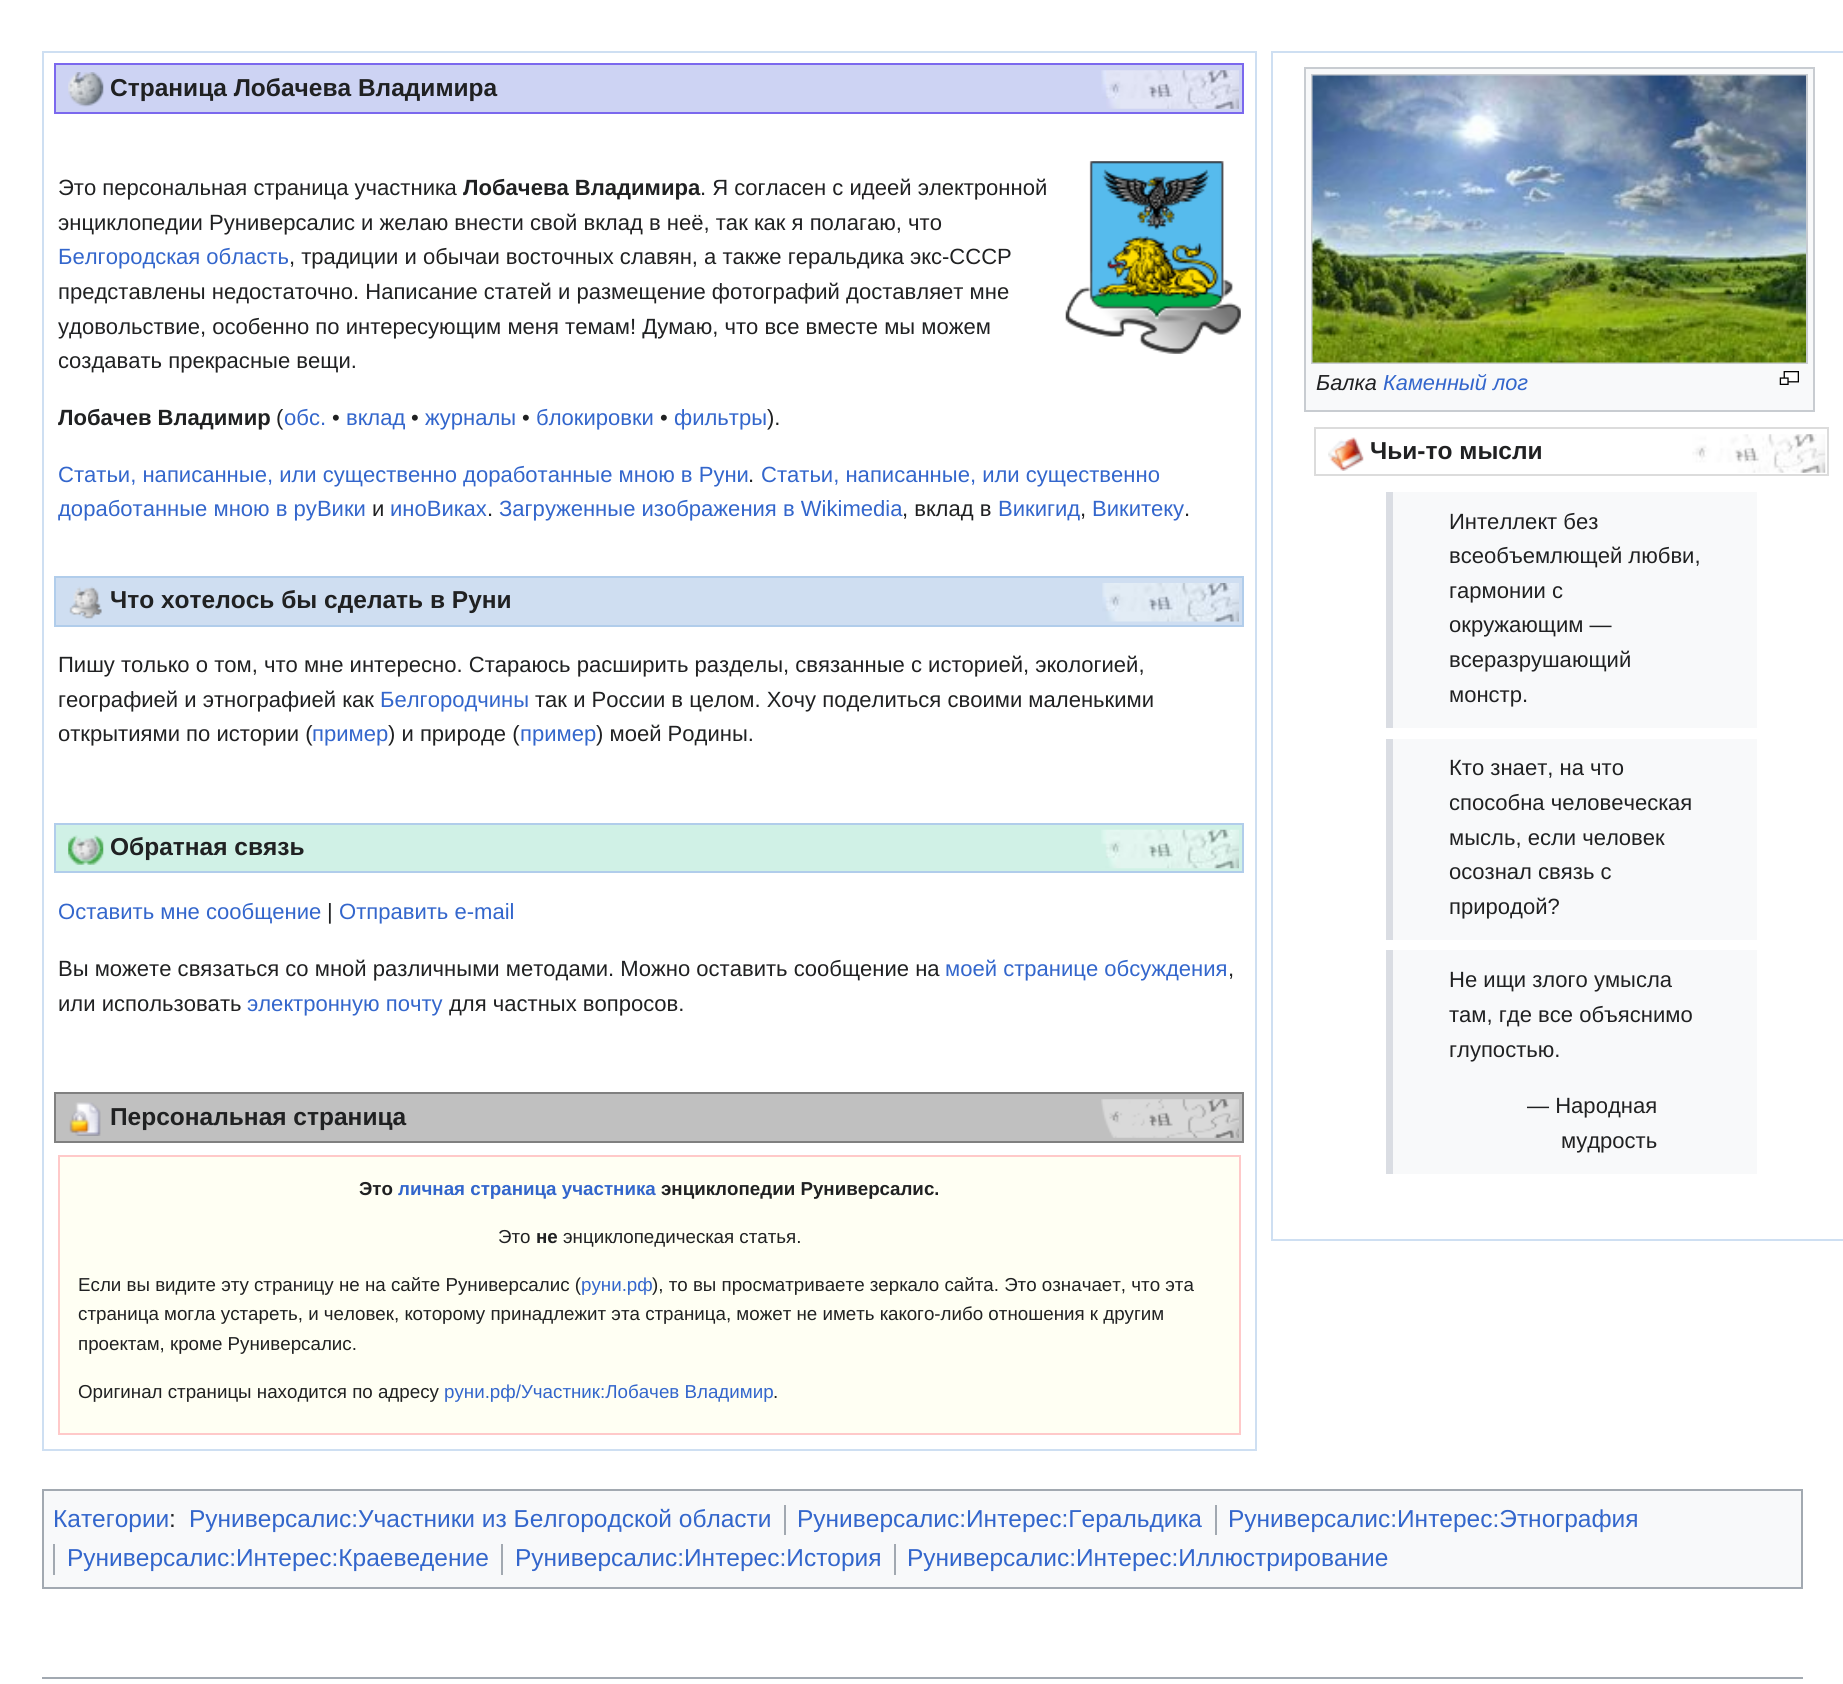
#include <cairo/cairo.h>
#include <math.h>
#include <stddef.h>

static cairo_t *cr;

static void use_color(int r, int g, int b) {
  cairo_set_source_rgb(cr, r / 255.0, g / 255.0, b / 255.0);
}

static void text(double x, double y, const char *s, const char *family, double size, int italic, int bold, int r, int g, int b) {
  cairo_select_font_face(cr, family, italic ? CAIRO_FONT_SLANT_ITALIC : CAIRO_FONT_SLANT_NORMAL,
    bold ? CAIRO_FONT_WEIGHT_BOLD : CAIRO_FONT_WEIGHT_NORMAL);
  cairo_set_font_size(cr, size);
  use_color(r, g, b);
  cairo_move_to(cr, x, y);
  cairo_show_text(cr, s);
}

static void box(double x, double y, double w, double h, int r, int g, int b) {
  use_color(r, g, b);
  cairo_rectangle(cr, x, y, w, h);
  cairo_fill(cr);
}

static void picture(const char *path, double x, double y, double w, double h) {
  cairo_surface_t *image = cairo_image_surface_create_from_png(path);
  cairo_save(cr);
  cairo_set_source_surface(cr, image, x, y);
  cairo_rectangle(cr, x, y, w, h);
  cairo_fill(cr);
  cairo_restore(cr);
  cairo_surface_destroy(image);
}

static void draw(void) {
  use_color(255, 255, 255);
  cairo_paint(cr);
  cairo_rectangle(cr, 43, 52, 1213, 1398);
  use_color(206, 223, 242);
  cairo_stroke(cr);
  use_color(205, 211, 243);
  cairo_rectangle(cr, 55, 64, 1188, 49);
  cairo_fill_preserve(cr);
  use_color(123, 104, 238);
  cairo_stroke(cr);
  picture("img_01.png", 68, 72, 36, 35);
  picture("img_02.png", 1101, 70, 138, 39);
  picture("img_03.png", 1065, 161, 176, 193);
  use_color(207, 222, 241);
  cairo_rectangle(cr, 55, 577, 1188, 49);
  cairo_fill_preserve(cr);
  use_color(177, 205, 235);
  cairo_stroke(cr);
  picture("img_04.png", 69, 586, 33, 33);
  picture("img_05.png", 1102, 583, 137, 39);
  use_color(208, 241, 230);
  cairo_rectangle(cr, 55, 824, 1188, 48);
  cairo_fill_preserve(cr);
  use_color(177, 205, 235);
  cairo_stroke(cr);
  picture("img_06.png", 68, 835, 36, 30);
  picture("img_07.png", 1101, 829, 138, 40);
  use_color(192, 192, 192);
  cairo_rectangle(cr, 55, 1093, 1188, 49);
  cairo_fill_preserve(cr);
  use_color(128, 128, 128);
  cairo_stroke(cr);
  picture("img_08.png", 69, 1102, 32, 34);
  picture("img_09.png", 1101, 1099, 138, 39);
  use_color(255, 255, 243);
  cairo_rectangle(cr, 59, 1156, 1181, 278);
  cairo_fill_preserve(cr);
  use_color(255, 201, 201);
  cairo_stroke(cr);
  cairo_rectangle(cr, 1272, 52, 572, 1188);
  use_color(206, 223, 242);
  cairo_stroke(cr);
  box(1306, 69, 507, 341, 248, 249, 250);
  box(1304, 67, 511, 2, 200, 204, 209);
  box(1304, 410, 511, 2, 200, 204, 209);
  box(1813, 67, 2, 344, 200, 204, 209);
  box(1304, 67, 2, 344, 200, 204, 209);
  cairo_rectangle(cr, 1312, 75, 495, 288);
  cairo_stroke(cr);
  picture("img_10.png", 1312, 75, 494, 288);
  picture("img_11.png", 1779, 371, 20, 14);
  cairo_rectangle(cr, 1315, 428, 513, 47);
  use_color(220, 220, 220);
  cairo_stroke(cr);
  picture("img_12.png", 1328, 437, 36, 34);
  picture("img_13.png", 1692, 434, 134, 39);
  box(1393, 492, 364, 236, 248, 249, 250);
  box(1386, 492, 7, 236, 218, 221, 227);
  box(1393, 739, 364, 201, 248, 249, 250);
  box(1386, 739, 7, 201, 218, 221, 227);
  box(1393, 950, 364, 224, 248, 249, 250);
  box(1386, 950, 7, 224, 218, 221, 227);
  use_color(248, 249, 250);
  cairo_rectangle(cr, 43, 1490, 1759, 98);
  cairo_fill_preserve(cr);
  use_color(162, 169, 177);
  cairo_stroke(cr);
  box(784, 1505, 2, 30, 162, 169, 177);
  box(1215, 1505, 2, 30, 162, 169, 177);
  box(53, 1544, 2, 31, 162, 169, 177);
  box(501, 1544, 2, 31, 162, 169, 177);
  box(894, 1544, 2, 31, 162, 169, 177);
  box(42, 1677, 1761, 2, 162, 169, 177);
  text(110, 96, "Страница Лобачева Владимира", "Liberation Sans", 24.5, 0, 1, 32, 33, 34);
  text(58, 195, "Это персональная страница участника", "Liberation Sans", 22.05, 0, 0, 32, 33, 34);
  text(463, 195, "Лобачева Владимира", "Liberation Sans", 22.05, 0, 1, 32, 33, 34);
  text(700, 195, ". Я согласен с идеей электронной", "Liberation Sans", 22.05, 0, 0, 32, 33, 34);
  text(58, 230, "энциклопедии Руниверсалис и желаю внести свой вклад в неё, так как я полагаю, что", "Liberation Sans", 22.05, 0, 0, 32, 33, 34);
  text(58, 264, "Белгородская область", "Liberation Sans", 22.05, 0, 0, 51, 102, 204);
  text(289, 264, ", традиции и обычаи восточных славян, а также геральдика экс-СССР", "Liberation Sans", 22.05, 0, 0, 32, 33, 34);
  text(58, 299, "представлены недостаточно. Написание статей и размещение фотографий доставляет мне", "Liberation Sans", 22.05, 0, 0, 32, 33, 34);
  text(58, 334, "удовольствие, особенно по интересующим меня темам! Думаю, что все вместе мы можем", "Liberation Sans", 22.05, 0, 0, 32, 33, 34);
  text(58, 368, "создавать прекрасные вещи.", "Liberation Sans", 22.05, 0, 0, 32, 33, 34);
  text(58, 425, "Лобачев Владимир", "Liberation Sans", 22.05, 0, 1, 32, 33, 34);
  text(276, 425, "(", "Liberation Sans", 22.05, 0, 0, 32, 33, 34);
  text(284, 425, "обс.", "Liberation Sans", 22.05, 0, 0, 51, 102, 204);
  text(332, 425, "•", "Liberation Sans", 22.05, 0, 0, 32, 33, 34);
  text(346, 425, "вклад", "Liberation Sans", 22.05, 0, 0, 51, 102, 204);
  text(411, 425, "•", "Liberation Sans", 22.05, 0, 0, 32, 33, 34);
  text(425, 425, "журналы", "Liberation Sans", 22.05, 0, 0, 51, 102, 204);
  text(522, 425, "•", "Liberation Sans", 22.05, 0, 0, 32, 33, 34);
  text(536, 425, "блокировки", "Liberation Sans", 22.05, 0, 0, 51, 102, 204);
  text(660, 425, "•", "Liberation Sans", 22.05, 0, 0, 32, 33, 34);
  text(674, 425, "фильтры", "Liberation Sans", 22.05, 0, 0, 51, 102, 204);
  text(767, 425, ").", "Liberation Sans", 22.05, 0, 0, 32, 33, 34);
  text(58, 482, "Статьи, написанные, или существенно доработанные мною в Руни", "Liberation Sans", 22.05, 0, 0, 51, 102, 204);
  text(748, 482, ".", "Liberation Sans", 22.05, 0, 0, 32, 33, 34);
  text(761, 482, "Статьи, написанные, или существенно", "Liberation Sans", 22.05, 0, 0, 51, 102, 204);
  text(58, 516, "доработанные мною в руВики", "Liberation Sans", 22.05, 0, 0, 51, 102, 204);
  text(372, 516, "и", "Liberation Sans", 22.05, 0, 0, 32, 33, 34);
  text(390, 516, "иноВиках", "Liberation Sans", 22.05, 0, 0, 51, 102, 204);
  text(487, 516, ".", "Liberation Sans", 22.05, 0, 0, 32, 33, 34);
  text(499, 516, "Загруженные изображения в Wikimedia", "Liberation Sans", 22.05, 0, 0, 51, 102, 204);
  text(902, 516, ", вклад в", "Liberation Sans", 22.05, 0, 0, 32, 33, 34);
  text(998, 516, "Викигид", "Liberation Sans", 22.05, 0, 0, 51, 102, 204);
  text(1080, 516, ",", "Liberation Sans", 22.05, 0, 0, 32, 33, 34);
  text(1092, 516, "Викитеку", "Liberation Sans", 22.05, 0, 0, 51, 102, 204);
  text(1184, 516, ".", "Liberation Sans", 22.05, 0, 0, 32, 33, 34);
  text(110, 608, "Что хотелось бы сделать в Руни", "Liberation Sans", 24.5, 0, 1, 32, 33, 34);
  text(58, 672, "Пишу только о том, что мне интересно. Стараюсь расширить разделы, связанные с историей, экологией,", "Liberation Sans", 22.05, 0, 0, 32, 33, 34);
  text(58, 707, "географией и этнографией как", "Liberation Sans", 22.05, 0, 0, 32, 33, 34);
  text(380, 707, "Белгородчины", "Liberation Sans", 22.05, 0, 0, 51, 102, 204);
  text(535, 707, "так и России в целом. Хочу поделиться своими маленькими", "Liberation Sans", 22.05, 0, 0, 32, 33, 34);
  text(58, 741, "открытиями по истории (", "Liberation Sans", 22.05, 0, 0, 32, 33, 34);
  text(312, 741, "пример", "Liberation Sans", 22.05, 0, 0, 51, 102, 204);
  text(388, 741, ") и природе (", "Liberation Sans", 22.05, 0, 0, 32, 33, 34);
  text(520, 741, "пример", "Liberation Sans", 22.05, 0, 0, 51, 102, 204);
  text(596, 741, ") моей Родины.", "Liberation Sans", 22.05, 0, 0, 32, 33, 34);
  text(110, 855, "Обратная связь", "Liberation Sans", 24.5, 0, 1, 32, 33, 34);
  text(58, 919, "Оставить мне сообщение", "Liberation Sans", 22.05, 0, 0, 51, 102, 204);
  text(327, 919, "|", "Liberation Sans", 22.05, 0, 0, 32, 33, 34);
  text(339, 919, "Отправить e-mail", "Liberation Sans", 22.05, 0, 0, 51, 102, 204);
  text(58, 976, "Вы можете связаться со мной различными методами. Можно оставить сообщение на", "Liberation Sans", 22.05, 0, 0, 32, 33, 34);
  text(945, 976, "моей странице обсуждения", "Liberation Sans", 22.05, 0, 0, 51, 102, 204);
  text(1228, 976, ",", "Liberation Sans", 22.05, 0, 0, 32, 33, 34);
  text(58, 1011, "или использовать", "Liberation Sans", 22.05, 0, 0, 32, 33, 34);
  text(247, 1011, "электронную почту", "Liberation Sans", 22.05, 0, 0, 51, 102, 204);
  text(449, 1011, "для частных вопросов.", "Liberation Sans", 22.05, 0, 0, 32, 33, 34);
  text(110, 1125, "Персональная страница", "Liberation Sans", 24.5, 0, 1, 32, 33, 34);
  text(359, 1195, "Это", "Liberation Sans", 18.75, 0, 1, 32, 33, 34);
  text(398, 1195, "личная страница участника", "Liberation Sans", 18.75, 0, 1, 51, 102, 204);
  text(661, 1195, "энциклопедии Руниверсалис.", "Liberation Sans", 18.75, 0, 1, 32, 33, 34);
  text(498, 1243, "Это", "Liberation Sans", 18.75, 0, 0, 32, 33, 34);
  text(536, 1243, "не", "Liberation Sans", 18.75, 0, 1, 32, 33, 34);
  text(563, 1243, "энциклопедическая статья.", "Liberation Sans", 18.75, 0, 0, 32, 33, 34);
  text(78, 1291, "Если вы видите эту страницу не на сайте Руниверсалис (", "Liberation Sans", 18.75, 0, 0, 32, 33, 34);
  text(581, 1291, "руни.рф", "Liberation Sans", 18.75, 0, 0, 51, 102, 204);
  text(652, 1291, "), то вы просматриваете зеркало сайта. Это означает, что эта", "Liberation Sans", 18.75, 0, 0, 32, 33, 34);
  text(78, 1320, "страница могла устареть, и человек, которому принадлежит эта страница, может не иметь какого-либо отношения к другим", "Liberation Sans", 18.75, 0, 0, 32, 33, 34);
  text(78, 1350, "проектам, кроме Руниверсалис.", "Liberation Sans", 18.75, 0, 0, 32, 33, 34);
  text(78, 1398, "Оригинал страницы находится по адресу", "Liberation Sans", 18.75, 0, 0, 32, 33, 34);
  text(444, 1398, "руни.рф/Участник:Лобачев Владимир", "Liberation Sans", 18.75, 0, 0, 51, 102, 204);
  text(773, 1398, ".", "Liberation Sans", 18.75, 0, 0, 32, 33, 34);
  text(1316, 390, "Балка", "Liberation Sans", 21.75, 1, 0, 32, 33, 34);
  text(1383, 390, "Каменный лог", "Liberation Sans", 21.75, 1, 0, 51, 102, 204);
  text(1370, 459, "Чьи-то мысли", "Liberation Sans", 24.5, 0, 1, 32, 33, 34);
  text(1449, 529, "Интеллект без", "Liberation Sans", 22.05, 0, 0, 32, 33, 34);
  text(1449, 563, "всеобъемлющей любви,", "Liberation Sans", 22.05, 0, 0, 32, 33, 34);
  text(1449, 598, "гармонии с", "Liberation Sans", 22.05, 0, 0, 32, 33, 34);
  text(1449, 632, "окружающим —", "Liberation Sans", 22.05, 0, 0, 32, 33, 34);
  text(1449, 667, "всеразрушающий", "Liberation Sans", 22.05, 0, 0, 32, 33, 34);
  text(1449, 702, "монстр.", "Liberation Sans", 22.05, 0, 0, 32, 33, 34);
  text(1449, 775, "Кто знает, на что", "Liberation Sans", 22.05, 0, 0, 32, 33, 34);
  text(1449, 810, "способна человеческая", "Liberation Sans", 22.05, 0, 0, 32, 33, 34);
  text(1449, 845, "мысль, если человек", "Liberation Sans", 22.05, 0, 0, 32, 33, 34);
  text(1449, 879, "осознал связь с", "Liberation Sans", 22.05, 0, 0, 32, 33, 34);
  text(1449, 914, "природой?", "Liberation Sans", 22.05, 0, 0, 32, 33, 34);
  text(1449, 987, "Не ищи злого умысла", "Liberation Sans", 22.05, 0, 0, 32, 33, 34);
  text(1449, 1022, "там, где все объяснимо", "Liberation Sans", 22.05, 0, 0, 32, 33, 34);
  text(1449, 1057, "глупостью.", "Liberation Sans", 22.05, 0, 0, 32, 33, 34);
  text(1527, 1113, "— Народная", "Liberation Sans", 22.05, 0, 0, 32, 33, 34);
  text(1561, 1148, "мудрость", "Liberation Sans", 22.05, 0, 0, 32, 33, 34);
  text(189, 1527, "Руниверсалис:Участники из Белгородской области", "Liberation Sans", 24.5, 0, 0, 51, 102, 204);
  text(797, 1527, "Руниверсалис:Интерес:Геральдика", "Liberation Sans", 24.5, 0, 0, 51, 102, 204);
  text(1228, 1527, "Руниверсалис:Интерес:Этнография", "Liberation Sans", 24.5, 0, 0, 51, 102, 204);
  text(67, 1566, "Руниверсалис:Интерес:Краеведение", "Liberation Sans", 24.5, 0, 0, 51, 102, 204);
  text(515, 1566, "Руниверсалис:Интерес:История", "Liberation Sans", 24.5, 0, 0, 51, 102, 204);
  text(907, 1566, "Руниверсалис:Интерес:Иллюстрирование", "Liberation Sans", 24.5, 0, 0, 51, 102, 204);
  text(53, 1527, "Категории", "Liberation Sans", 24.5, 0, 0, 51, 102, 204);
  text(169, 1527, ":", "Liberation Sans", 24.5, 0, 0, 32, 33, 34);
}

int main(void) {
  cairo_surface_t *surface = cairo_image_surface_create(CAIRO_FORMAT_RGB24, 1843, 1684);
  cr = cairo_create(surface);
  cairo_font_options_t *options = cairo_font_options_create();
  cairo_font_options_set_hint_metrics(options, CAIRO_HINT_METRICS_OFF);
  cairo_font_options_set_hint_style(options, CAIRO_HINT_STYLE_NONE);
  cairo_set_font_options(cr, options);
  cairo_set_miter_limit(cr, 4);
  draw();
  cairo_surface_write_to_png(surface, "out.png");
  cairo_font_options_destroy(options);
  cairo_destroy(cr);
  cairo_surface_destroy(surface);
  return 0;
}
